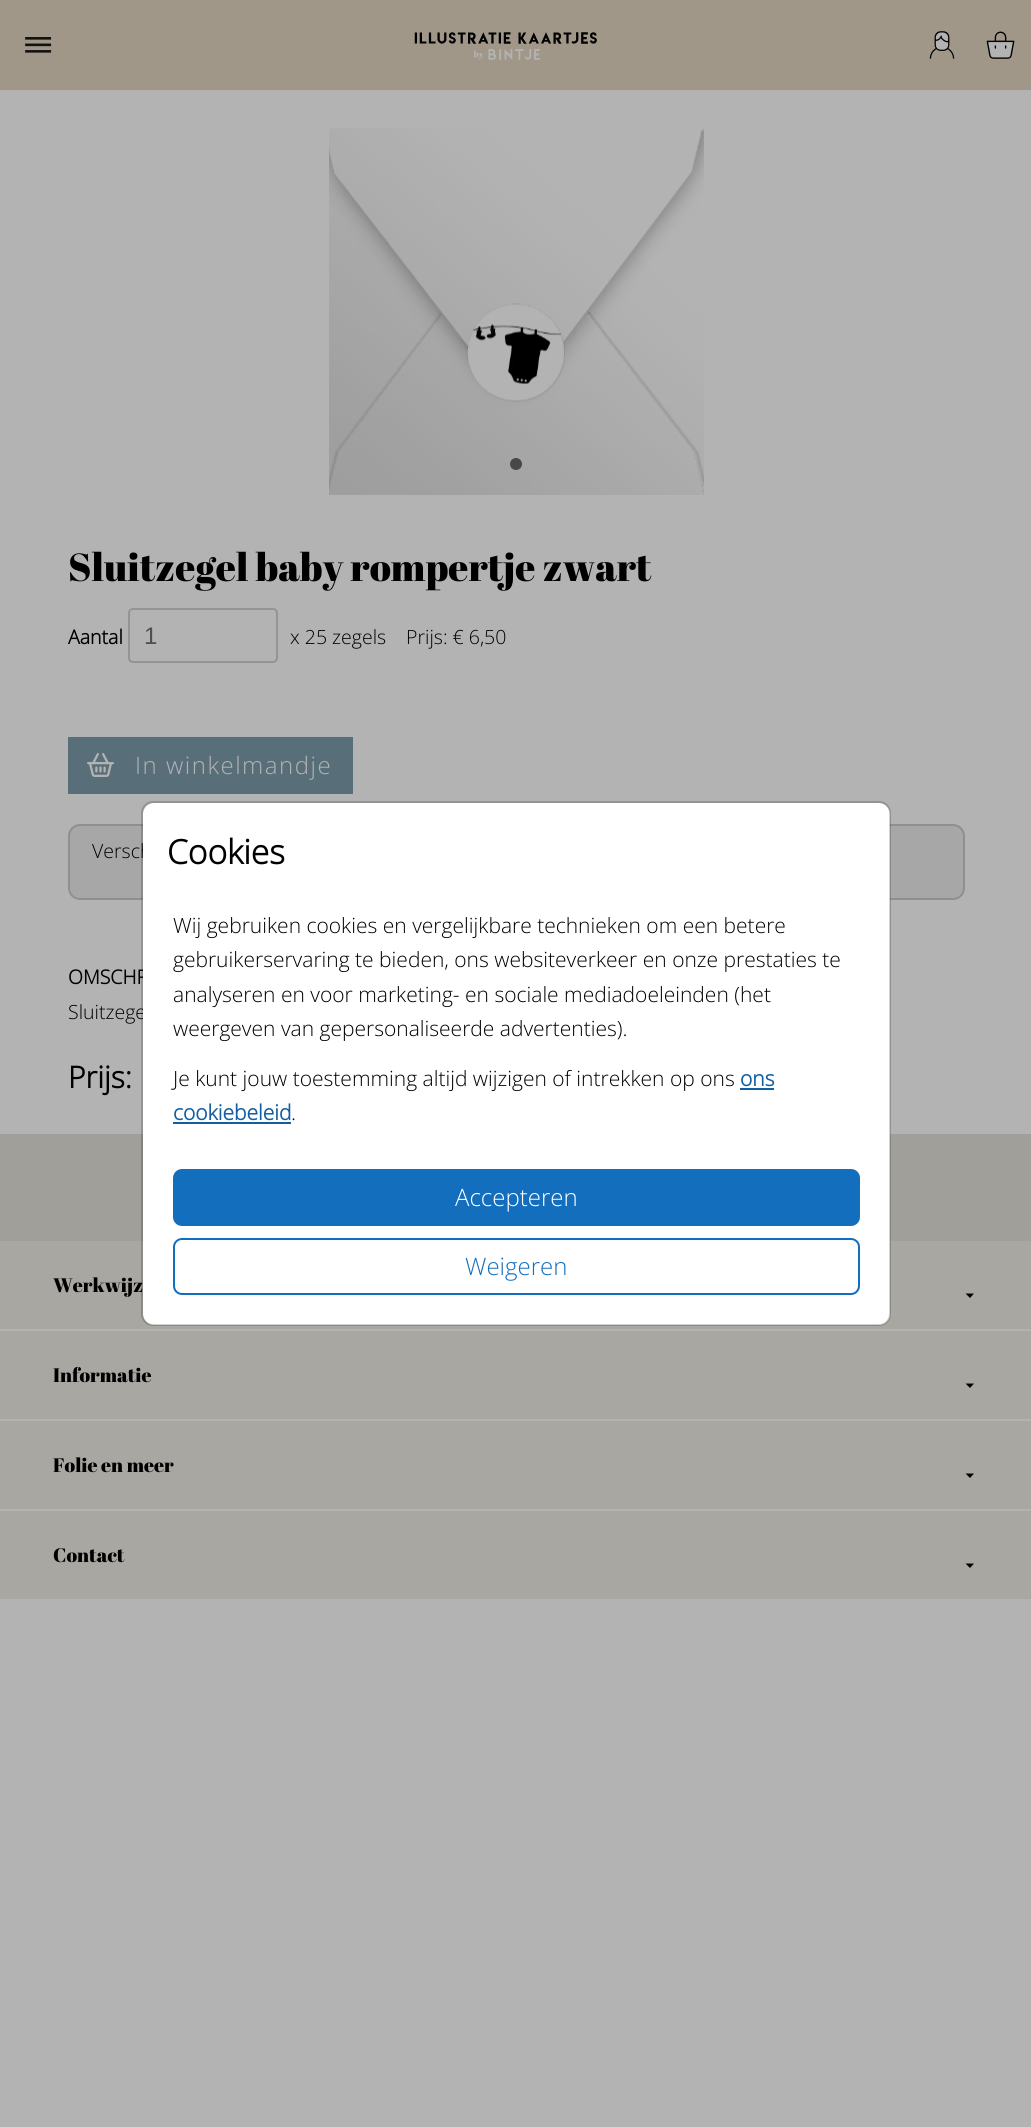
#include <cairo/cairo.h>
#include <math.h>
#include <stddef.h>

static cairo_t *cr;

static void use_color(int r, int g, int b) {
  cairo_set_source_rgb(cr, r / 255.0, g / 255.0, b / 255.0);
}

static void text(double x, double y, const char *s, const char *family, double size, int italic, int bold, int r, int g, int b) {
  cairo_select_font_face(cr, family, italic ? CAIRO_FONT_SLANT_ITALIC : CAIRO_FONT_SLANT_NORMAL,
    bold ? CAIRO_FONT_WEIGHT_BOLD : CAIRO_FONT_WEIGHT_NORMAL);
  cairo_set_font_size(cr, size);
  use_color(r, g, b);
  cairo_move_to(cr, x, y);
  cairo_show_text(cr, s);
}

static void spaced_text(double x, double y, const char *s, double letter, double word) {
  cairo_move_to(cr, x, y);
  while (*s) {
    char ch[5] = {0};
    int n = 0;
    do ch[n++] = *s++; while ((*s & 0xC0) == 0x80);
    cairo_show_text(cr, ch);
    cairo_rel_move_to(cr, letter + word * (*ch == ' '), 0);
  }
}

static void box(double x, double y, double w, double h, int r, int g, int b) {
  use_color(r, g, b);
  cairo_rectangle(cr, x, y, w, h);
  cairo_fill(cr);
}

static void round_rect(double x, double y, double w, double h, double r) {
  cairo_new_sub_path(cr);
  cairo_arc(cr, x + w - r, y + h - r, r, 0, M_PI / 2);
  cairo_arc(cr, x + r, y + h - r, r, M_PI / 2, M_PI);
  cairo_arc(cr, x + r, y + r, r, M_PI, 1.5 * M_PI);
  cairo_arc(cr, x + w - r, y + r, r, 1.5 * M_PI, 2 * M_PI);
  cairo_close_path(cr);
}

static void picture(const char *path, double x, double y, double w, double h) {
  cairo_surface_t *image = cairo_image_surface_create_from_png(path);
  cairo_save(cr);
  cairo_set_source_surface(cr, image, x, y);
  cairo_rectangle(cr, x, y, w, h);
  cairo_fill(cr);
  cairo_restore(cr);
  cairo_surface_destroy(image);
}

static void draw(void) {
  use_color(179, 179, 179);
  cairo_paint(cr);
  box(0, 0, 1031, 90, 160, 151, 137);
  picture("img_01.png", 25, 37, 27, 16);
  picture("img_02.png", 414, 32, 183, 28);
  picture("img_03.png", 929, 31, 26, 28);
  picture("img_04.png", 986, 31, 29, 28);
  picture("img_05.png", 329, 128, 375, 367);
  picture("img_06.png", 467, 303, 98, 99);
  use_color(72, 72, 72);
  cairo_arc(cr, 516, 464, 6, 0, 2 * M_PI);
  cairo_fill(cr);
  round_rect(129, 609, 148, 53, 4);
  use_color(148, 148, 148);
  cairo_stroke(cr);
  box(68, 737, 285, 57, 88, 111, 122);
  picture("img_07.png", 87, 753, 27, 24);
  use_color(167, 167, 167);
  round_rect(69, 825, 895, 74, 11);
  cairo_fill_preserve(cr);
  use_color(143, 143, 143);
  cairo_stroke(cr);
  box(0, 1241, 1031, 358, 168, 167, 162);
  box(0, 1134, 1031, 107, 160, 159, 153);
  use_color(0, 0, 0);
  cairo_new_path(cr);
  cairo_move_to(cr, 965.5, 1293.5);
  cairo_line_to(cr, 974, 1293.5);
  cairo_line_to(cr, 970, 1298);
  cairo_close_path(cr);
  cairo_fill(cr);
  box(0, 1329, 1031, 2, 179, 179, 179);
  use_color(0, 0, 0);
  cairo_new_path(cr);
  cairo_move_to(cr, 965.5, 1383.5);
  cairo_line_to(cr, 974, 1383.5);
  cairo_line_to(cr, 970, 1388);
  cairo_close_path(cr);
  cairo_fill(cr);
  box(0, 1419, 1031, 2, 179, 179, 179);
  use_color(0, 0, 0);
  cairo_new_path(cr);
  cairo_move_to(cr, 965.5, 1473.5);
  cairo_line_to(cr, 974, 1473.5);
  cairo_line_to(cr, 970, 1478);
  cairo_close_path(cr);
  cairo_fill(cr);
  box(0, 1509, 1031, 2, 179, 179, 179);
  use_color(0, 0, 0);
  cairo_new_path(cr);
  cairo_move_to(cr, 965.5, 1563.5);
  cairo_line_to(cr, 974, 1563.5);
  cairo_line_to(cr, 970, 1568);
  cairo_close_path(cr);
  cairo_fill(cr);
  text(68, 581, "Sluitzegel baby rompertje zwart", "Abril Fatface", 39, 0, 0, 0, 0, 0);
  text(68, 644, "Aantal", "Open Sans", 19.5, 0, 1, 0, 0, 0);
  text(144, 644, "1", "Liberation Sans", 24, 0, 0, 77, 80, 83);
  text(290, 644, "x 25 zegels", "Open Sans Light", 19.5, 0, 0, 0, 0, 0);
  text(406, 644, "Prijs: € 6,50", "Open Sans Light", 19.5, 0, 0, 0, 0, 0);
  cairo_set_font_size(cr, 24);
  use_color(179, 179, 179);
  spaced_text(135, 774, "In winkelmandje", 1.5, 0);
  text(92, 858, "Versch", "Open Sans Light", 19.5, 0, 0, 0, 0, 0);
  text(68, 984, "OMSCHR", "Open Sans", 19.5, 0, 1, 0, 0, 0);
  text(68, 1019, "Sluitzege", "Open Sans Light", 19.5, 0, 0, 0, 0, 0);
  text(68, 1088, "Prijs:", "Open Sans", 30, 0, 1, 0, 0, 0);
  use_color(255, 255, 255);
  round_rect(143, 803, 747, 522, 11);
  cairo_fill(cr);
  text(53, 1292, "Werkwijz", "Abril Fatface", 19.5, 0, 0, 0, 0, 0);
  round_rect(142, 802, 748, 523, 11);
  cairo_set_source_rgba(cr, 0, 0, 0, 0.18);
  cairo_stroke(cr);
  round_rect(174, 1239, 685, 55, 8);
  use_color(20, 110, 190);
  cairo_stroke(cr);
  text(465, 1275, "Weigeren", "Open Sans Light", 24, 0, 0, 20, 110, 190);
  round_rect(174, 1170, 685, 55, 8);
  cairo_fill_preserve(cr);
  cairo_stroke(cr);
  text(455, 1206, "Accepteren", "Open Sans Light", 24, 0, 0, 255, 255, 255);
  text(291, 1120, ".", "Open Sans Light", 21, 0, 0, 0, 0, 0);
  text(173, 1120, "cookiebeleid", "Open Sans", 21, 0, 1, 17, 94, 162);
  box(173, 1122, 118, 2, 17, 94, 162);
  text(740, 1086, "ons", "Open Sans", 21, 0, 1, 17, 94, 162);
  box(740, 1088, 34, 2, 17, 94, 162);
  text(173, 1086, "Je kunt jouw toestemming altijd wijzigen of intrekken op ons", "Open Sans Light", 21, 0, 0, 0, 0, 0);
  text(173, 1036, "weergeven van gepersonaliseerde advertenties).", "Open Sans Light", 21, 0, 0, 0, 0, 0);
  text(173, 1002, "analyseren en voor marketing- en sociale mediadoeleinden (het", "Open Sans Light", 21, 0, 0, 0, 0, 0);
  text(173, 967, "gebruikerservaring te bieden, ons websiteverkeer en onze prestaties te", "Open Sans Light", 21, 0, 0, 0, 0, 0);
  text(173, 933, "Wij gebruiken cookies en vergelijkbare technieken om een betere", "Open Sans Light", 21, 0, 0, 0, 0, 0);
  text(167, 864, "Cookies", "Open Sans", 33.5, 0, 1, 0, 0, 0);
  text(53, 1382, "Informatie", "Abril Fatface", 19.5, 0, 0, 0, 0, 0);
  text(53, 1472, "Folie en meer", "Abril Fatface", 19.5, 0, 0, 0, 0, 0);
  text(53, 1562, "Contact", "Abril Fatface", 19.5, 0, 0, 0, 0, 0);
}

int main(void) {
  cairo_surface_t *surface = cairo_image_surface_create(CAIRO_FORMAT_RGB24, 1031, 2127);
  cr = cairo_create(surface);
  cairo_font_options_t *options = cairo_font_options_create();
  cairo_font_options_set_hint_metrics(options, CAIRO_HINT_METRICS_OFF);
  cairo_font_options_set_hint_style(options, CAIRO_HINT_STYLE_NONE);
  cairo_set_font_options(cr, options);
  cairo_set_miter_limit(cr, 4);
  draw();
  cairo_surface_write_to_png(surface, "out.png");
  cairo_font_options_destroy(options);
  cairo_destroy(cr);
  cairo_surface_destroy(surface);
  return 0;
}
